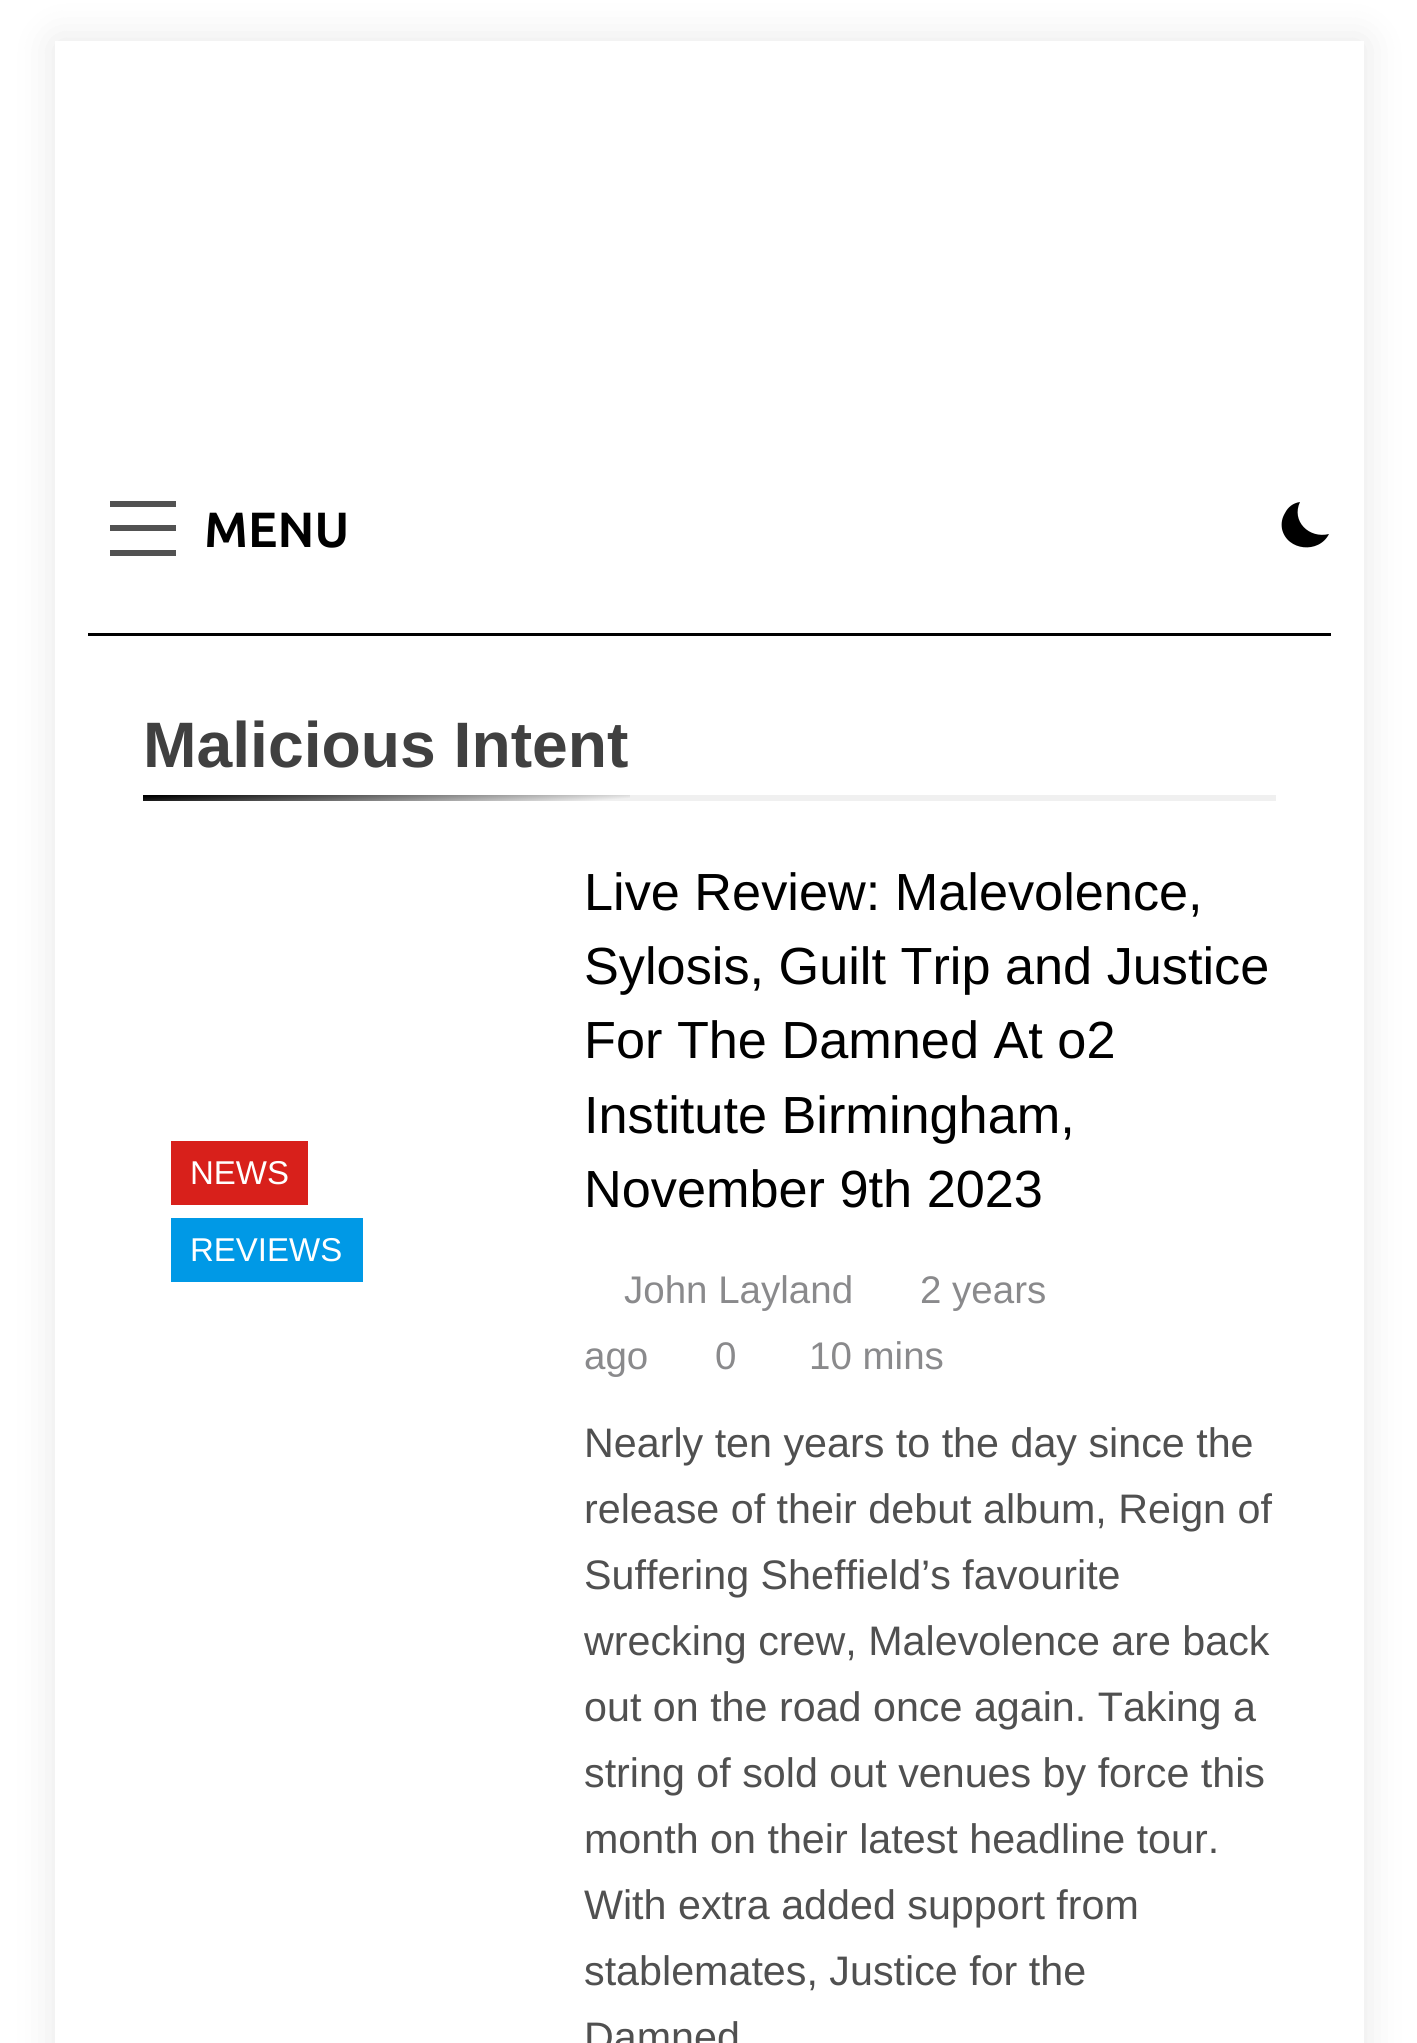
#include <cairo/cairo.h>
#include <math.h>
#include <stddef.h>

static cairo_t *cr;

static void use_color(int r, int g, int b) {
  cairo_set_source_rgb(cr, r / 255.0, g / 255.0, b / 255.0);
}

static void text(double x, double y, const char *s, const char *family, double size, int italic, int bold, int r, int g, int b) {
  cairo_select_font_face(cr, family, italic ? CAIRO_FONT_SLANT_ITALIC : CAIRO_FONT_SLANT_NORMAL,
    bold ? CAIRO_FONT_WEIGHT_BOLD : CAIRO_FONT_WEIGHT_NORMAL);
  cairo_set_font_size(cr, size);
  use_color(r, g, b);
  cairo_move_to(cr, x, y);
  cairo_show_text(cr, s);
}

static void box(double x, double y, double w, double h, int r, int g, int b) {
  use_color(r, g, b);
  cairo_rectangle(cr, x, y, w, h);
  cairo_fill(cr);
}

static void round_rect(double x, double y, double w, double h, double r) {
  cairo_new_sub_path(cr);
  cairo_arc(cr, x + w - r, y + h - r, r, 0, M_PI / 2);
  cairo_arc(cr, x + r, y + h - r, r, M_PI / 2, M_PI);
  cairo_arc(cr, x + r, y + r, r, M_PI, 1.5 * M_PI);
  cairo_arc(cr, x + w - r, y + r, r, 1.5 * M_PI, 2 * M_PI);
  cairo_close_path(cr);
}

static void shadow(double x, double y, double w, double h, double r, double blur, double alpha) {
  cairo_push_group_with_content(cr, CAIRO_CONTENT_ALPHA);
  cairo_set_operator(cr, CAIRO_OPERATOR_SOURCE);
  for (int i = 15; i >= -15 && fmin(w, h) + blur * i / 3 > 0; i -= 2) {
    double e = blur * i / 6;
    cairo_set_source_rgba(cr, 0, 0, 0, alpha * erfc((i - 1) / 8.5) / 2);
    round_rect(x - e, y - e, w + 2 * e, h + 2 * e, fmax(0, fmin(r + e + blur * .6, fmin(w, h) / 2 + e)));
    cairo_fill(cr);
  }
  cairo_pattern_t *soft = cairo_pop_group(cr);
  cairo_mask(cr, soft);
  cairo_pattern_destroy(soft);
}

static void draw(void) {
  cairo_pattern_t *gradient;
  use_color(255, 255, 255);
  cairo_paint(cr);
  cairo_save(cr);
  cairo_set_fill_rule(cr, CAIRO_FILL_RULE_EVEN_ODD);
  cairo_new_path(cr);
  cairo_move_to(cr, 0, 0);
  cairo_line_to(cr, 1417, 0);
  cairo_line_to(cr, 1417, 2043);
  cairo_line_to(cr, 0, 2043);
  cairo_close_path(cr);
  cairo_move_to(cr, 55, 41);
  cairo_line_to(cr, 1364, 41);
  cairo_line_to(cr, 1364, 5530);
  cairo_line_to(cr, 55, 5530);
  cairo_close_path(cr);
  cairo_clip(cr);
  use_color(0, 0, 0);
  shadow(55, 41, 1309, 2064, 0, 20.5, 0.1);
  cairo_restore(cr);
  box(110, 501, 66, 6, 82, 82, 82);
  box(110, 525, 66, 6, 82, 82, 82);
  box(110, 550, 66, 6, 82, 82, 82);
  use_color(0, 0, 0);
  cairo_new_path(cr);
  cairo_move_to(cr, 1329, 534);
  cairo_curve_to(cr, 1309, 539, 1291, 521, 1300, 502);
  cairo_curve_to(cr, 1293, 503, 1288, 507, 1285, 513);
  cairo_curve_to(cr, 1282, 518, 1281, 523, 1282, 529);
  cairo_curve_to(cr, 1287, 551, 1319, 554, 1329, 534);
  cairo_close_path(cr);
  cairo_fill(cr);
  box(88, 633, 1243, 3, 0, 0, 0);
  box(630, 795, 646, 6, 240, 240, 240);
  gradient = cairo_pattern_create_linear(385, 778, 388, 817);
  cairo_pattern_add_color_stop_rgba(gradient, 0, 0, 0, 0, 1);
  cairo_pattern_add_color_stop_rgba(gradient, 1, 0.941, 0.941, 0.941, 1);
  cairo_set_source(cr, gradient);
  cairo_pattern_destroy(gradient);
  cairo_rectangle(cr, 143, 795, 487, 6);
  cairo_fill(cr);
  box(171, 1141, 137, 64, 216, 32, 27);
  box(171, 1218, 192, 64, 0, 153, 230);
  text(204, 547, "MENU", "Ubuntu", 49.5, 0, 1, 0, 0, 0);
  text(143, 767, "Malicious Intent", "Liberation Sans", 64.25, 0, 1, 64, 64, 64);
  text(190, 1184, "NEWS", "Liberation Sans", 33, 0, 0, 255, 255, 255);
  text(190, 1261, "REVIEWS", "Liberation Sans", 33, 0, 0, 255, 255, 255);
  text(584, 910, "Live Review: Malevolence,", "Liberation Sans", 52.25, 0, 0, 0, 0, 0);
  text(584, 984, "Sylosis, Guilt Trip and Justice", "Liberation Sans", 52.25, 0, 0, 0, 0, 0);
  text(584, 1058, "For The Damned At o2", "Liberation Sans", 52.25, 0, 0, 0, 0, 0);
  text(584, 1133, "Institute Birmingham,", "Liberation Sans", 52.25, 0, 0, 0, 0, 0);
  text(584, 1207, "November 9th 2023", "Liberation Sans", 52.25, 0, 0, 0, 0, 0);
  text(624, 1303, "John Layland", "Liberation Sans", 38.5, 0, 0, 138, 138, 140);
  text(920, 1303, "2 years", "Liberation Sans", 38.5, 0, 0, 138, 138, 140);
  text(584, 1369, "ago", "Liberation Sans", 38.5, 0, 0, 138, 138, 140);
  text(715, 1369, "0", "Liberation Sans", 38.5, 0, 0, 138, 138, 140);
  text(809, 1369, "10 mins", "Liberation Sans", 38.5, 0, 0, 138, 138, 140);
  text(584, 1457, "Nearly ten years to the day since the", "Liberation Sans", 41.25, 0, 0, 80, 80, 80);
  text(584, 1523, "release of their debut album, Reign of", "Liberation Sans", 41.25, 0, 0, 80, 80, 80);
  text(584, 1589, "Suffering Sheffield’s favourite", "Liberation Sans", 41.25, 0, 0, 80, 80, 80);
  text(584, 1655, "wrecking crew, Malevolence are back", "Liberation Sans", 41.25, 0, 0, 80, 80, 80);
  text(584, 1721, "out on the road once again. Taking a", "Liberation Sans", 41.25, 0, 0, 80, 80, 80);
  text(584, 1787, "string of sold out venues by force this", "Liberation Sans", 41.25, 0, 0, 80, 80, 80);
  text(584, 1853, "month on their latest headline tour.", "Liberation Sans", 41.25, 0, 0, 80, 80, 80);
  text(584, 1919, "With extra added support from", "Liberation Sans", 41.25, 0, 0, 80, 80, 80);
  text(584, 1985, "stablemates, Justice for the", "Liberation Sans", 41.25, 0, 0, 80, 80, 80);
  text(584, 2051, "Damned", "Liberation Sans", 41.25, 0, 0, 80, 80, 80);
}

int main(void) {
  cairo_surface_t *surface = cairo_image_surface_create(CAIRO_FORMAT_RGB24, 1417, 2043);
  cr = cairo_create(surface);
  cairo_font_options_t *options = cairo_font_options_create();
  cairo_font_options_set_hint_metrics(options, CAIRO_HINT_METRICS_OFF);
  cairo_font_options_set_hint_style(options, CAIRO_HINT_STYLE_NONE);
  cairo_set_font_options(cr, options);
  cairo_set_miter_limit(cr, 4);
  draw();
  cairo_surface_write_to_png(surface, "out.png");
  cairo_font_options_destroy(options);
  cairo_destroy(cr);
  cairo_surface_destroy(surface);
  return 0;
}
